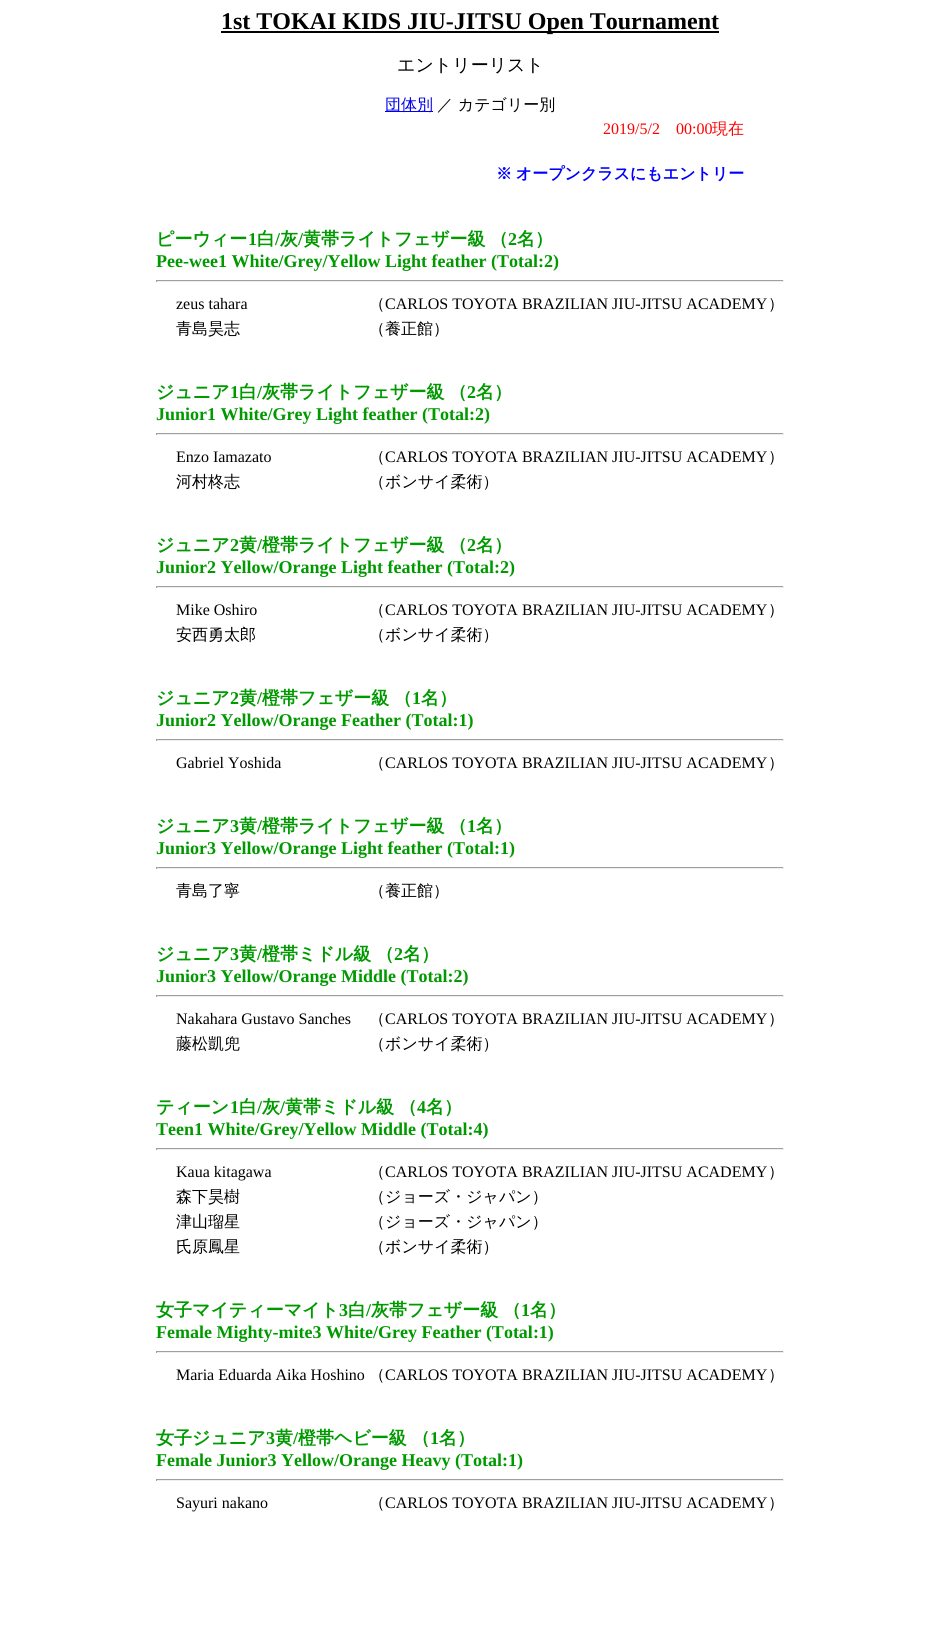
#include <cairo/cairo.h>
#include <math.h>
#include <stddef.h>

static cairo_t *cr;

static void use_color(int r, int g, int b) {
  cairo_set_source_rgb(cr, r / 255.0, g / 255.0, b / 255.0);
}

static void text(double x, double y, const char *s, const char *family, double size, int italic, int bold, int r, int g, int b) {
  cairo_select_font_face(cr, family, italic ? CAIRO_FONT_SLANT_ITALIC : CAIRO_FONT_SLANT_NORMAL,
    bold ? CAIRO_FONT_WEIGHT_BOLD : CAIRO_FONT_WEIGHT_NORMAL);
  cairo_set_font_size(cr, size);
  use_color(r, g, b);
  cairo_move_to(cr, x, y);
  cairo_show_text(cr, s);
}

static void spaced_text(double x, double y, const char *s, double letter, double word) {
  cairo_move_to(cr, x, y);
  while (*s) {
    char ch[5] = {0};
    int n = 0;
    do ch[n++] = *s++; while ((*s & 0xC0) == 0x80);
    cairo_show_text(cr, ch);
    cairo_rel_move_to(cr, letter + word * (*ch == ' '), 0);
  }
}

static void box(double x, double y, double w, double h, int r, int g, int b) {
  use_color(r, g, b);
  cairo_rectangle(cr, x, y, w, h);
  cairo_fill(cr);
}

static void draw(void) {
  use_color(255, 255, 255);
  cairo_paint(cr);
  box(221, 31, 498, 2, 0, 0, 0);
  box(385, 111, 48, 1, 0, 0, 238);
  box(156, 280, 628, 1, 159, 159, 159);
  box(783, 280, 1, 2, 238, 238, 238);
  box(156, 281, 628, 1, 238, 238, 238);
  box(156, 280, 1, 2, 159, 159, 159);
  box(156, 433, 628, 1, 159, 159, 159);
  box(783, 433, 1, 2, 238, 238, 238);
  box(156, 434, 628, 1, 238, 238, 238);
  box(156, 433, 1, 2, 159, 159, 159);
  box(156, 586, 628, 1, 159, 159, 159);
  box(783, 586, 1, 2, 238, 238, 238);
  box(156, 587, 628, 1, 238, 238, 238);
  box(156, 586, 1, 2, 159, 159, 159);
  box(156, 739, 628, 1, 159, 159, 159);
  box(783, 739, 1, 2, 238, 238, 238);
  box(156, 740, 628, 1, 238, 238, 238);
  box(156, 739, 1, 2, 159, 159, 159);
  box(156, 867, 628, 1, 159, 159, 159);
  box(783, 867, 1, 2, 238, 238, 238);
  box(156, 868, 628, 1, 238, 238, 238);
  box(156, 867, 1, 2, 159, 159, 159);
  box(156, 995, 628, 1, 159, 159, 159);
  box(783, 995, 1, 2, 238, 238, 238);
  box(156, 996, 628, 1, 238, 238, 238);
  box(156, 995, 1, 2, 159, 159, 159);
  box(156, 1148, 628, 1, 159, 159, 159);
  box(783, 1148, 1, 2, 238, 238, 238);
  box(156, 1149, 628, 1, 238, 238, 238);
  box(156, 1148, 1, 2, 159, 159, 159);
  box(156, 1351, 628, 1, 159, 159, 159);
  box(783, 1351, 1, 2, 238, 238, 238);
  box(156, 1352, 628, 1, 238, 238, 238);
  box(156, 1351, 1, 2, 159, 159, 159);
  box(156, 1479, 628, 1, 159, 159, 159);
  box(783, 1479, 1, 2, 238, 238, 238);
  box(156, 1480, 628, 1, 238, 238, 238);
  box(156, 1479, 1, 2, 159, 159, 159);
  text(221, 29, "1st TOKAI KIDS JIU-JITSU Open Tournament", "Liberation Serif", 24, 0, 1, 0, 0, 0);
  text(397, 71, "エントリーリスト", "WenQuanYi Zen Hei Medium", 18, 0, 0, 0, 0, 0);
  text(385, 110, "団体別", "WenQuanYi Zen Hei Medium", 16, 0, 0, 0, 0, 238);
  text(437, 110, "／ カテゴリー別", "WenQuanYi Zen Hei Medium", 16, 0, 0, 0, 0, 0);
  text(603, 134, "2019/5/2", "Liberation Serif", 16, 0, 0, 255, 0, 0);
  text(676, 134, "00:00", "Liberation Serif", 16, 0, 0, 255, 0, 0);
  text(712, 134, "現在", "WenQuanYi Zen Hei Medium", 16, 0, 0, 255, 0, 0);
  cairo_select_font_face(cr, "WenQuanYi Zen Hei", CAIRO_FONT_SLANT_NORMAL, CAIRO_FONT_WEIGHT_BOLD);
  use_color(0, 0, 255);
  spaced_text(496, 179, "※ オープンクラスにもエントリー", 0, -1);
  text(156, 245, "ピーウィー", "WenQuanYi Zen Hei", 18, 0, 1, 0, 153, 0);
  text(248, 245, "1", "Liberation Serif", 18, 0, 1, 0, 153, 0);
  text(257, 245, "白", "WenQuanYi Zen Hei", 18, 0, 1, 0, 153, 0);
  text(275, 245, "/", "Liberation Serif", 18, 0, 1, 0, 153, 0);
  text(280, 245, "灰", "WenQuanYi Zen Hei", 18, 0, 1, 0, 153, 0);
  text(298, 245, "/", "Liberation Serif", 18, 0, 1, 0, 153, 0);
  text(303, 245, "黄帯ライトフェザー級", "WenQuanYi Zen Hei", 18, 0, 1, 0, 153, 0);
  text(490, 245, "（", "WenQuanYi Zen Hei", 18, 0, 1, 0, 153, 0);
  text(508, 245, "2", "Liberation Serif", 18, 0, 1, 0, 153, 0);
  text(517, 245, "名）", "WenQuanYi Zen Hei", 18, 0, 1, 0, 153, 0);
  text(156, 267, "Pee-wee1 White/Grey/Yellow Light feather (Total:2)", "Liberation Serif", 18, 0, 1, 0, 153, 0);
  text(176, 309, "zeus tahara", "Liberation Serif", 16, 0, 0, 0, 0, 0);
  text(369, 309, "（", "WenQuanYi Zen Hei Medium", 16, 0, 0, 0, 0, 0);
  text(385, 309, "CARLOS TOYOTA BRAZILIAN JIU-JITSU ACADEMY", "Liberation Serif", 16, 0, 0, 0, 0, 0);
  text(768, 309, "）", "WenQuanYi Zen Hei Medium", 16, 0, 0, 0, 0, 0);
  text(176, 334, "青島昊志", "WenQuanYi Zen Hei Medium", 16, 0, 0, 0, 0, 0);
  text(369, 334, "（養正館）", "WenQuanYi Zen Hei Medium", 16, 0, 0, 0, 0, 0);
  text(156, 398, "ジュニア", "WenQuanYi Zen Hei", 18, 0, 1, 0, 153, 0);
  text(230, 398, "1", "Liberation Serif", 18, 0, 1, 0, 153, 0);
  text(239, 398, "白", "WenQuanYi Zen Hei", 18, 0, 1, 0, 153, 0);
  text(257, 398, "/", "Liberation Serif", 18, 0, 1, 0, 153, 0);
  text(262, 398, "灰帯ライトフェザー級", "WenQuanYi Zen Hei", 18, 0, 1, 0, 153, 0);
  text(449, 398, "（", "WenQuanYi Zen Hei", 18, 0, 1, 0, 153, 0);
  text(467, 398, "2", "Liberation Serif", 18, 0, 1, 0, 153, 0);
  text(476, 398, "名）", "WenQuanYi Zen Hei", 18, 0, 1, 0, 153, 0);
  text(156, 420, "Junior1 White/Grey Light feather (Total:2)", "Liberation Serif", 18, 0, 1, 0, 153, 0);
  text(176, 462, "Enzo Iamazato", "Liberation Serif", 16, 0, 0, 0, 0, 0);
  text(369, 462, "（", "WenQuanYi Zen Hei Medium", 16, 0, 0, 0, 0, 0);
  text(385, 462, "CARLOS TOYOTA BRAZILIAN JIU-JITSU ACADEMY", "Liberation Serif", 16, 0, 0, 0, 0, 0);
  text(768, 462, "）", "WenQuanYi Zen Hei Medium", 16, 0, 0, 0, 0, 0);
  text(176, 487, "河村柊志", "WenQuanYi Zen Hei Medium", 16, 0, 0, 0, 0, 0);
  text(369, 487, "（ボンサイ柔術）", "WenQuanYi Zen Hei Medium", 16, 0, 0, 0, 0, 0);
  text(156, 551, "ジュニア", "WenQuanYi Zen Hei", 18, 0, 1, 0, 153, 0);
  text(230, 551, "2", "Liberation Serif", 18, 0, 1, 0, 153, 0);
  text(239, 551, "黄", "WenQuanYi Zen Hei", 18, 0, 1, 0, 153, 0);
  text(257, 551, "/", "Liberation Serif", 18, 0, 1, 0, 153, 0);
  text(262, 551, "橙帯ライトフェザー級", "WenQuanYi Zen Hei", 18, 0, 1, 0, 153, 0);
  text(449, 551, "（", "WenQuanYi Zen Hei", 18, 0, 1, 0, 153, 0);
  text(467, 551, "2", "Liberation Serif", 18, 0, 1, 0, 153, 0);
  text(476, 551, "名）", "WenQuanYi Zen Hei", 18, 0, 1, 0, 153, 0);
  text(156, 573, "Junior2 Yellow/Orange Light feather (Total:2)", "Liberation Serif", 18, 0, 1, 0, 153, 0);
  text(176, 615, "Mike Oshiro", "Liberation Serif", 16, 0, 0, 0, 0, 0);
  text(369, 615, "（", "WenQuanYi Zen Hei Medium", 16, 0, 0, 0, 0, 0);
  text(385, 615, "CARLOS TOYOTA BRAZILIAN JIU-JITSU ACADEMY", "Liberation Serif", 16, 0, 0, 0, 0, 0);
  text(768, 615, "）", "WenQuanYi Zen Hei Medium", 16, 0, 0, 0, 0, 0);
  text(176, 640, "安西勇太郎", "WenQuanYi Zen Hei Medium", 16, 0, 0, 0, 0, 0);
  text(369, 640, "（ボンサイ柔術）", "WenQuanYi Zen Hei Medium", 16, 0, 0, 0, 0, 0);
  text(156, 704, "ジュニア", "WenQuanYi Zen Hei", 18, 0, 1, 0, 153, 0);
  text(230, 704, "2", "Liberation Serif", 18, 0, 1, 0, 153, 0);
  text(239, 704, "黄", "WenQuanYi Zen Hei", 18, 0, 1, 0, 153, 0);
  text(257, 704, "/", "Liberation Serif", 18, 0, 1, 0, 153, 0);
  text(262, 704, "橙帯フェザー級", "WenQuanYi Zen Hei", 18, 0, 1, 0, 153, 0);
  text(394, 704, "（", "WenQuanYi Zen Hei", 18, 0, 1, 0, 153, 0);
  text(412, 704, "1", "Liberation Serif", 18, 0, 1, 0, 153, 0);
  text(421, 704, "名）", "WenQuanYi Zen Hei", 18, 0, 1, 0, 153, 0);
  text(156, 726, "Junior2 Yellow/Orange Feather (Total:1)", "Liberation Serif", 18, 0, 1, 0, 153, 0);
  text(176, 768, "Gabriel Yoshida", "Liberation Serif", 16, 0, 0, 0, 0, 0);
  text(369, 768, "（", "WenQuanYi Zen Hei Medium", 16, 0, 0, 0, 0, 0);
  text(385, 768, "CARLOS TOYOTA BRAZILIAN JIU-JITSU ACADEMY", "Liberation Serif", 16, 0, 0, 0, 0, 0);
  text(768, 768, "）", "WenQuanYi Zen Hei Medium", 16, 0, 0, 0, 0, 0);
  text(156, 832, "ジュニア", "WenQuanYi Zen Hei", 18, 0, 1, 0, 153, 0);
  text(230, 832, "3", "Liberation Serif", 18, 0, 1, 0, 153, 0);
  text(239, 832, "黄", "WenQuanYi Zen Hei", 18, 0, 1, 0, 153, 0);
  text(257, 832, "/", "Liberation Serif", 18, 0, 1, 0, 153, 0);
  text(262, 832, "橙帯ライトフェザー級", "WenQuanYi Zen Hei", 18, 0, 1, 0, 153, 0);
  text(449, 832, "（", "WenQuanYi Zen Hei", 18, 0, 1, 0, 153, 0);
  text(467, 832, "1", "Liberation Serif", 18, 0, 1, 0, 153, 0);
  text(476, 832, "名）", "WenQuanYi Zen Hei", 18, 0, 1, 0, 153, 0);
  text(156, 854, "Junior3 Yellow/Orange Light feather (Total:1)", "Liberation Serif", 18, 0, 1, 0, 153, 0);
  text(176, 896, "青島了寧", "WenQuanYi Zen Hei Medium", 16, 0, 0, 0, 0, 0);
  text(369, 896, "（養正館）", "WenQuanYi Zen Hei Medium", 16, 0, 0, 0, 0, 0);
  text(156, 960, "ジュニア", "WenQuanYi Zen Hei", 18, 0, 1, 0, 153, 0);
  text(230, 960, "3", "Liberation Serif", 18, 0, 1, 0, 153, 0);
  text(239, 960, "黄", "WenQuanYi Zen Hei", 18, 0, 1, 0, 153, 0);
  text(257, 960, "/", "Liberation Serif", 18, 0, 1, 0, 153, 0);
  text(262, 960, "橙帯ミドル級", "WenQuanYi Zen Hei", 18, 0, 1, 0, 153, 0);
  text(376, 960, "（", "WenQuanYi Zen Hei", 18, 0, 1, 0, 153, 0);
  text(394, 960, "2", "Liberation Serif", 18, 0, 1, 0, 153, 0);
  text(403, 960, "名）", "WenQuanYi Zen Hei", 18, 0, 1, 0, 153, 0);
  text(156, 982, "Junior3 Yellow/Orange Middle (Total:2)", "Liberation Serif", 18, 0, 1, 0, 153, 0);
  text(176, 1024, "Nakahara Gustavo Sanches", "Liberation Serif", 16, 0, 0, 0, 0, 0);
  text(369, 1024, "（", "WenQuanYi Zen Hei Medium", 16, 0, 0, 0, 0, 0);
  text(385, 1024, "CARLOS TOYOTA BRAZILIAN JIU-JITSU ACADEMY", "Liberation Serif", 16, 0, 0, 0, 0, 0);
  text(768, 1024, "）", "WenQuanYi Zen Hei Medium", 16, 0, 0, 0, 0, 0);
  text(176, 1049, "藤松凱兜", "WenQuanYi Zen Hei Medium", 16, 0, 0, 0, 0, 0);
  text(369, 1049, "（ボンサイ柔術）", "WenQuanYi Zen Hei Medium", 16, 0, 0, 0, 0, 0);
  text(156, 1113, "ティーン", "WenQuanYi Zen Hei", 18, 0, 1, 0, 153, 0);
  text(230, 1113, "1", "Liberation Serif", 18, 0, 1, 0, 153, 0);
  text(239, 1113, "白", "WenQuanYi Zen Hei", 18, 0, 1, 0, 153, 0);
  text(257, 1113, "/", "Liberation Serif", 18, 0, 1, 0, 153, 0);
  text(262, 1113, "灰", "WenQuanYi Zen Hei", 18, 0, 1, 0, 153, 0);
  text(280, 1113, "/", "Liberation Serif", 18, 0, 1, 0, 153, 0);
  text(285, 1113, "黄帯ミドル級", "WenQuanYi Zen Hei", 18, 0, 1, 0, 153, 0);
  text(399, 1113, "（", "WenQuanYi Zen Hei", 18, 0, 1, 0, 153, 0);
  text(417, 1113, "4", "Liberation Serif", 18, 0, 1, 0, 153, 0);
  text(426, 1113, "名）", "WenQuanYi Zen Hei", 18, 0, 1, 0, 153, 0);
  text(156, 1135, "Teen1 White/Grey/Yellow Middle (Total:4)", "Liberation Serif", 18, 0, 1, 0, 153, 0);
  text(176, 1177, "Kaua kitagawa", "Liberation Serif", 16, 0, 0, 0, 0, 0);
  text(369, 1177, "（", "WenQuanYi Zen Hei Medium", 16, 0, 0, 0, 0, 0);
  text(385, 1177, "CARLOS TOYOTA BRAZILIAN JIU-JITSU ACADEMY", "Liberation Serif", 16, 0, 0, 0, 0, 0);
  text(768, 1177, "）", "WenQuanYi Zen Hei Medium", 16, 0, 0, 0, 0, 0);
  text(176, 1202, "森下昊樹", "WenQuanYi Zen Hei Medium", 16, 0, 0, 0, 0, 0);
  text(369, 1202, "（ジョーズ・ジャパン）", "WenQuanYi Zen Hei Medium", 16, 0, 0, 0, 0, 0);
  text(176, 1227, "津山瑠星", "WenQuanYi Zen Hei Medium", 16, 0, 0, 0, 0, 0);
  text(369, 1227, "（ジョーズ・ジャパン）", "WenQuanYi Zen Hei Medium", 16, 0, 0, 0, 0, 0);
  text(176, 1252, "氏原鳳星", "WenQuanYi Zen Hei Medium", 16, 0, 0, 0, 0, 0);
  text(369, 1252, "（ボンサイ柔術）", "WenQuanYi Zen Hei Medium", 16, 0, 0, 0, 0, 0);
  text(156, 1316, "女子マイティーマイト", "WenQuanYi Zen Hei", 18, 0, 1, 0, 153, 0);
  text(339, 1316, "3", "Liberation Serif", 18, 0, 1, 0, 153, 0);
  text(348, 1316, "白", "WenQuanYi Zen Hei", 18, 0, 1, 0, 153, 0);
  text(366, 1316, "/", "Liberation Serif", 18, 0, 1, 0, 153, 0);
  text(371, 1316, "灰帯フェザー級", "WenQuanYi Zen Hei", 18, 0, 1, 0, 153, 0);
  text(503, 1316, "（", "WenQuanYi Zen Hei", 18, 0, 1, 0, 153, 0);
  text(521, 1316, "1", "Liberation Serif", 18, 0, 1, 0, 153, 0);
  text(530, 1316, "名）", "WenQuanYi Zen Hei", 18, 0, 1, 0, 153, 0);
  text(156, 1338, "Female Mighty-mite3 White/Grey Feather (Total:1)", "Liberation Serif", 18, 0, 1, 0, 153, 0);
  text(176, 1380, "Maria Eduarda Aika Hoshino", "Liberation Serif", 16, 0, 0, 0, 0, 0);
  text(369, 1380, "（", "WenQuanYi Zen Hei Medium", 16, 0, 0, 0, 0, 0);
  text(385, 1380, "CARLOS TOYOTA BRAZILIAN JIU-JITSU ACADEMY", "Liberation Serif", 16, 0, 0, 0, 0, 0);
  text(768, 1380, "）", "WenQuanYi Zen Hei Medium", 16, 0, 0, 0, 0, 0);
  text(156, 1444, "女子ジュニア", "WenQuanYi Zen Hei", 18, 0, 1, 0, 153, 0);
  text(266, 1444, "3", "Liberation Serif", 18, 0, 1, 0, 153, 0);
  text(275, 1444, "黄", "WenQuanYi Zen Hei", 18, 0, 1, 0, 153, 0);
  text(293, 1444, "/", "Liberation Serif", 18, 0, 1, 0, 153, 0);
  text(298, 1444, "橙帯ヘビー級", "WenQuanYi Zen Hei", 18, 0, 1, 0, 153, 0);
  text(412, 1444, "（", "WenQuanYi Zen Hei", 18, 0, 1, 0, 153, 0);
  text(430, 1444, "1", "Liberation Serif", 18, 0, 1, 0, 153, 0);
  text(439, 1444, "名）", "WenQuanYi Zen Hei", 18, 0, 1, 0, 153, 0);
  text(156, 1466, "Female Junior3 Yellow/Orange Heavy (Total:1)", "Liberation Serif", 18, 0, 1, 0, 153, 0);
  text(176, 1508, "Sayuri nakano", "Liberation Serif", 16, 0, 0, 0, 0, 0);
  text(369, 1508, "（", "WenQuanYi Zen Hei Medium", 16, 0, 0, 0, 0, 0);
  text(385, 1508, "CARLOS TOYOTA BRAZILIAN JIU-JITSU ACADEMY", "Liberation Serif", 16, 0, 0, 0, 0, 0);
  text(768, 1508, "）", "WenQuanYi Zen Hei Medium", 16, 0, 0, 0, 0, 0);
}

int main(void) {
  cairo_surface_t *surface = cairo_image_surface_create(CAIRO_FORMAT_RGB24, 940, 1641);
  cr = cairo_create(surface);
  cairo_font_options_t *options = cairo_font_options_create();
  cairo_font_options_set_hint_metrics(options, CAIRO_HINT_METRICS_OFF);
  cairo_font_options_set_hint_style(options, CAIRO_HINT_STYLE_NONE);
  cairo_set_font_options(cr, options);
  cairo_set_miter_limit(cr, 4);
  draw();
  cairo_surface_write_to_png(surface, "out.png");
  cairo_font_options_destroy(options);
  cairo_destroy(cr);
  cairo_surface_destroy(surface);
  return 0;
}
